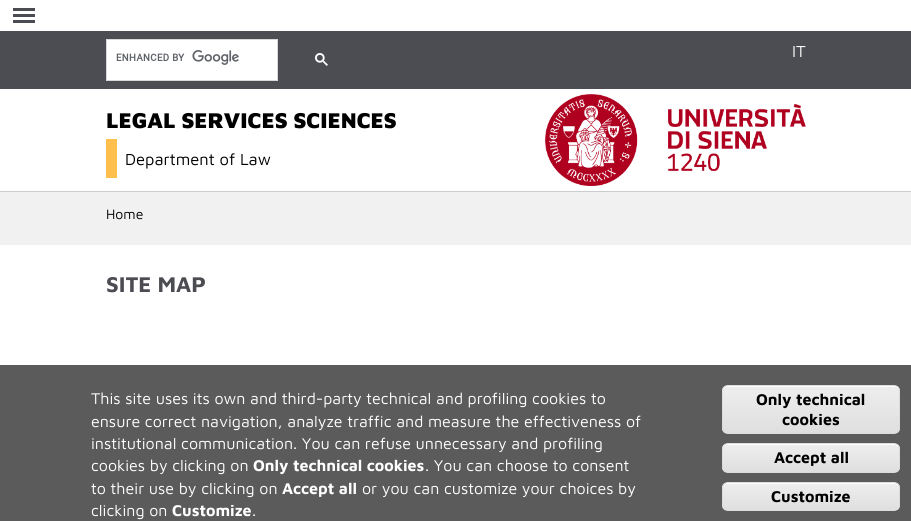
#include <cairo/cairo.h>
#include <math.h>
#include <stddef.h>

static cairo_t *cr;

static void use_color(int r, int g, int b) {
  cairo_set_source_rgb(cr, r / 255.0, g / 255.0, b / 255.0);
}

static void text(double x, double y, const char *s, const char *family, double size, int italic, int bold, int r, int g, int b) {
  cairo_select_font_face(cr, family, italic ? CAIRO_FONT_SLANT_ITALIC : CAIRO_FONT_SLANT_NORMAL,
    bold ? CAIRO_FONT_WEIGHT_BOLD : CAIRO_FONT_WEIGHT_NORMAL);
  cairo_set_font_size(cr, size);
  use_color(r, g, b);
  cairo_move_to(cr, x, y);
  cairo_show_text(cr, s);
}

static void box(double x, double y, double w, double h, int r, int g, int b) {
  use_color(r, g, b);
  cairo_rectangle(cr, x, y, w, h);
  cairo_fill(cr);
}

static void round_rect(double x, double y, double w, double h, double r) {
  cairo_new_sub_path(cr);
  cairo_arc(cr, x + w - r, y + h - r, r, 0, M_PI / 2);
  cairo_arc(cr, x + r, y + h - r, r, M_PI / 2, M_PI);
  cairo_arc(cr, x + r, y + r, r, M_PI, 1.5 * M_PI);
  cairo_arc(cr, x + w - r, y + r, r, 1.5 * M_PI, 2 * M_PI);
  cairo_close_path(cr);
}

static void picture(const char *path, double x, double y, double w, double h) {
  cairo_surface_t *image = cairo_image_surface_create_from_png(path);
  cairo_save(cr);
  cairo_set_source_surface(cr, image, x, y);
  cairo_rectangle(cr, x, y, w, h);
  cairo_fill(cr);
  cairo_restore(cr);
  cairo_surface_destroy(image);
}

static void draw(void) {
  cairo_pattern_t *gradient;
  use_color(255, 255, 255);
  cairo_paint(cr);
  box(13, 8, 22, 3, 76, 76, 83);
  box(13, 14, 22, 3, 76, 76, 83);
  box(13, 20, 22, 3, 76, 76, 83);
  box(0, 31, 911, 58, 76, 76, 83);
  use_color(255, 255, 255);
  cairo_rectangle(cr, 106.5, 39.5, 171, 41);
  cairo_fill_preserve(cr);
  use_color(217, 217, 217);
  cairo_set_line_width(cr, 1);
  cairo_stroke(cr);
  picture("img_01.png", 116, 50, 123, 15);
  picture("img_02.png", 315, 53, 13, 13);
  box(0, 191, 911, 1, 204, 204, 204);
  box(106, 139, 11, 39, 254, 191, 77);
  picture("img_03.png", 545, 94, 261, 92);
  box(0, 192, 911, 53, 241, 241, 241);
  box(0, 365, 911, 156, 91, 91, 91);
  cairo_save(cr);
  round_rect(722, 385, 178, 49, 6);
  cairo_clip(cr);
  gradient = cairo_pattern_create_linear(811, 386, 811, 433);
  cairo_pattern_add_color_stop_rgba(gradient, 0.05, 0.929, 0.929, 0.929, 1);
  cairo_pattern_add_color_stop_rgba(gradient, 1, 0.875, 0.875, 0.875, 1);
  cairo_set_source(cr, gradient);
  cairo_pattern_destroy(gradient);
  cairo_rectangle(cr, 722, 386, 178, 47);
  cairo_fill(cr);
  cairo_restore(cr);
  use_color(255, 255, 255);
  cairo_new_path(cr);
  cairo_move_to(cr, 728, 387);
  cairo_line_to(cr, 894, 387);
  cairo_curve_to(cr, 897, 387, 899, 389, 899, 392);
  cairo_curve_to(cr, 899, 389, 898, 387, 895, 386);
  cairo_line_to(cr, 728, 386);
  cairo_curve_to(cr, 725, 386, 723, 389, 723, 392);
  cairo_curve_to(cr, 723, 389, 725, 387, 728, 387);
  cairo_close_path(cr);
  cairo_fill(cr);
  round_rect(722.5, 385.5, 177, 48, 5.5);
  use_color(220, 220, 220);
  cairo_stroke(cr);
  cairo_save(cr);
  round_rect(722, 443, 178, 30, 6);
  cairo_clip(cr);
  gradient = cairo_pattern_create_linear(811, 444, 811, 472);
  cairo_pattern_add_color_stop_rgba(gradient, 0.05, 0.929, 0.929, 0.929, 1);
  cairo_pattern_add_color_stop_rgba(gradient, 1, 0.875, 0.875, 0.875, 1);
  cairo_set_source(cr, gradient);
  cairo_pattern_destroy(gradient);
  cairo_rectangle(cr, 722, 444, 178, 28);
  cairo_fill(cr);
  cairo_restore(cr);
  use_color(255, 255, 255);
  cairo_new_path(cr);
  cairo_move_to(cr, 728, 445);
  cairo_line_to(cr, 894, 445);
  cairo_curve_to(cr, 897, 445, 899, 447, 899, 450);
  cairo_curve_to(cr, 899, 447, 898, 445, 895, 444);
  cairo_line_to(cr, 728, 444);
  cairo_curve_to(cr, 725, 444, 723, 447, 723, 450);
  cairo_curve_to(cr, 723, 447, 725, 445, 728, 445);
  cairo_close_path(cr);
  cairo_fill(cr);
  round_rect(722.5, 443.5, 177, 29, 5.5);
  use_color(220, 220, 220);
  cairo_stroke(cr);
  cairo_save(cr);
  round_rect(722, 482, 178, 29, 6);
  cairo_clip(cr);
  gradient = cairo_pattern_create_linear(811, 483, 811, 510);
  cairo_pattern_add_color_stop_rgba(gradient, 0.05, 0.929, 0.929, 0.929, 1);
  cairo_pattern_add_color_stop_rgba(gradient, 1, 0.875, 0.875, 0.875, 1);
  cairo_set_source(cr, gradient);
  cairo_pattern_destroy(gradient);
  cairo_rectangle(cr, 722, 483, 178, 27);
  cairo_fill(cr);
  cairo_restore(cr);
  use_color(255, 255, 255);
  cairo_new_path(cr);
  cairo_move_to(cr, 728, 484);
  cairo_line_to(cr, 894, 484);
  cairo_curve_to(cr, 897, 484, 899, 486, 899, 489);
  cairo_curve_to(cr, 899, 486, 898, 484, 895, 483);
  cairo_line_to(cr, 728, 483);
  cairo_curve_to(cr, 725, 483, 723, 486, 723, 489);
  cairo_curve_to(cr, 723, 486, 725, 484, 728, 484);
  cairo_close_path(cr);
  cairo_fill(cr);
  round_rect(722.5, 482.5, 177, 28, 5.5);
  use_color(220, 220, 220);
  cairo_stroke(cr);
  text(792, 57, "IT", "Maven Pro", 16.5, 0, 0, 255, 255, 255);
  text(106, 128, "LEGAL SERVICES SCIENCES", "Maven Pro Black", 22, 0, 0, 0, 0, 0);
  text(125, 165, "Department of Law", "Maven Pro", 16.5, 0, 0, 0, 0, 0);
  text(106, 219, "Home", "Maven Pro", 14, 0, 0, 0, 0, 0);
  text(106, 292, "SITE MAP", "Maven Pro", 22, 0, 1, 76, 76, 83);
  text(91, 404, "This site uses its own and third-party technical and profiling cookies to", "Maven Pro", 16, 0, 0, 255, 255, 255);
  text(91, 427, "ensure correct navigation, analyze traffic and measure the effectiveness of", "Maven Pro", 16, 0, 0, 255, 255, 255);
  text(91, 449, "institutional communication. You can refuse unnecessary and profiling", "Maven Pro", 16, 0, 0, 255, 255, 255);
  text(91, 471, "cookies by clicking on", "Maven Pro", 16, 0, 0, 255, 255, 255);
  text(253, 471, "Only technical cookies", "Maven Pro", 16, 0, 1, 255, 255, 255);
  text(425, 471, ". You can choose to consent", "Maven Pro", 16, 0, 0, 255, 255, 255);
  text(91, 494, "to their use by clicking on", "Maven Pro", 16, 0, 0, 255, 255, 255);
  text(282, 494, "Accept all", "Maven Pro", 16, 0, 1, 255, 255, 255);
  text(362, 494, "or you can customize your choices by", "Maven Pro", 16, 0, 0, 255, 255, 255);
  text(91, 516, "clicking on", "Maven Pro", 16, 0, 0, 255, 255, 255);
  text(172, 516, "Customize", "Maven Pro", 16, 0, 1, 255, 255, 255);
  text(252, 516, ".", "Maven Pro", 16, 0, 0, 255, 255, 255);
  text(756, 405, "Only technical", "Maven Pro", 16, 0, 1, 0, 0, 0);
  text(782, 425, "cookies", "Maven Pro", 16, 0, 1, 0, 0, 0);
  text(774, 463, "Accept all", "Maven Pro", 16, 0, 1, 0, 0, 0);
  text(771, 502, "Customize", "Maven Pro", 16, 0, 1, 0, 0, 0);
}

int main(void) {
  cairo_surface_t *surface = cairo_image_surface_create(CAIRO_FORMAT_RGB24, 911, 521);
  cr = cairo_create(surface);
  cairo_font_options_t *options = cairo_font_options_create();
  cairo_font_options_set_hint_metrics(options, CAIRO_HINT_METRICS_OFF);
  cairo_font_options_set_hint_style(options, CAIRO_HINT_STYLE_NONE);
  cairo_set_font_options(cr, options);
  cairo_set_miter_limit(cr, 4);
  draw();
  cairo_surface_write_to_png(surface, "out.png");
  cairo_font_options_destroy(options);
  cairo_destroy(cr);
  cairo_surface_destroy(surface);
  return 0;
}
